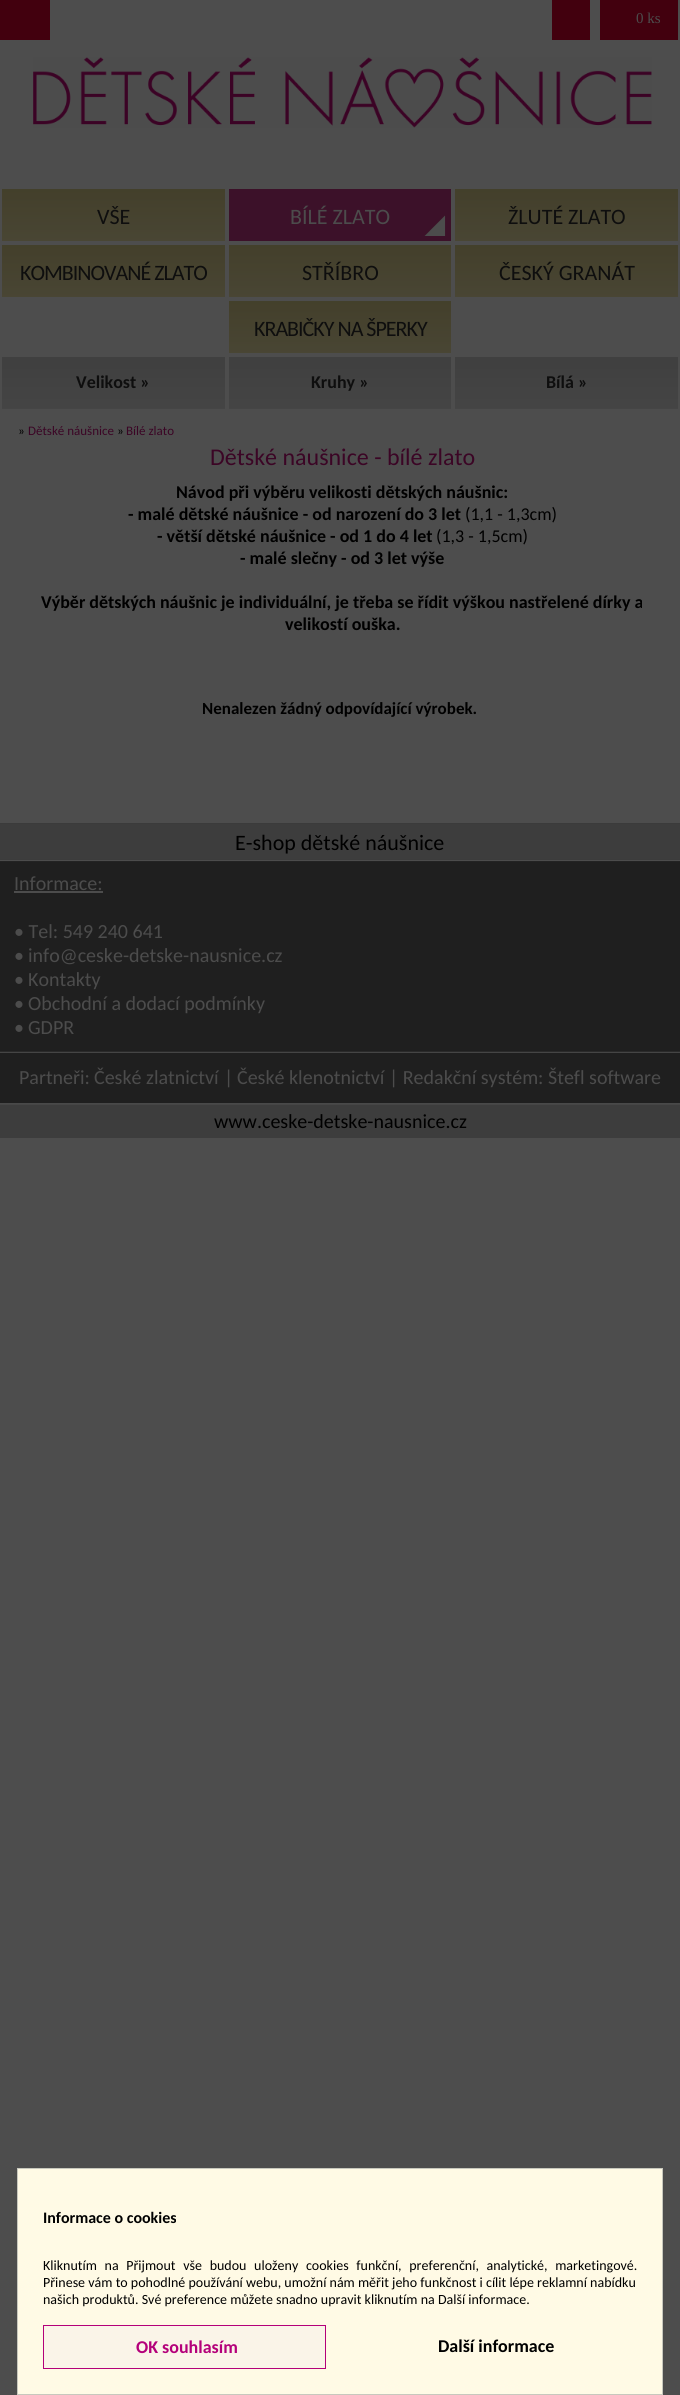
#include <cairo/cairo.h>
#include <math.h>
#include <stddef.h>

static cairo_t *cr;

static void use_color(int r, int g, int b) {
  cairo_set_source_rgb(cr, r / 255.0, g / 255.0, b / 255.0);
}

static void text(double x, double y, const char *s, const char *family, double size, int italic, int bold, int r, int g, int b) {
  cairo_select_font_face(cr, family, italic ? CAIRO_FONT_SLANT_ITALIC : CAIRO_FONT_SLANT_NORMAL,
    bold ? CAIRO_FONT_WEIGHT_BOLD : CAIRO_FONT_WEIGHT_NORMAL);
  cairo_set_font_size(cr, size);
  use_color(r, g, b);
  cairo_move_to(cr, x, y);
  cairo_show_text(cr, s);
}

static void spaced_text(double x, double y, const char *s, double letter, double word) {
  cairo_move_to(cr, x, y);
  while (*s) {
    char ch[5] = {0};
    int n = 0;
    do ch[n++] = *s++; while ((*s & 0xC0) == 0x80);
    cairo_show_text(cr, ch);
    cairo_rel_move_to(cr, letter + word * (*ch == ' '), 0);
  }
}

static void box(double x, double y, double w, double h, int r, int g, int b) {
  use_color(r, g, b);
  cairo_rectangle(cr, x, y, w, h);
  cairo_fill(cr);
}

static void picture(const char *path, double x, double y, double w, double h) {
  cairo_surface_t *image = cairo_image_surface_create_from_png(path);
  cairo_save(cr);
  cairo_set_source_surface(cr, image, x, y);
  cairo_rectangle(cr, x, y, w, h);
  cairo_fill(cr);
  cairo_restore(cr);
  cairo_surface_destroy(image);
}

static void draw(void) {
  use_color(77, 77, 77);
  cairo_paint(cr);
  box(0, 0, 50, 40, 66, 0, 14);
  box(552, 0, 38, 40, 66, 0, 14);
  box(600, 0, 78, 40, 66, 0, 14);
  picture("img_01.png", 33, 57, 619, 71);
  picture("img_02.png", 2, 189, 223, 52);
  picture("img_03.png", 229, 189, 222, 52);
  picture("img_02.png", 455, 189, 223, 52);
  picture("img_02.png", 2, 245, 223, 52);
  picture("img_04.png", 229, 245, 222, 52);
  picture("img_02.png", 455, 245, 223, 52);
  picture("img_04.png", 229, 301, 222, 52);
  picture("img_05.png", 2, 357, 223, 52);
  picture("img_06.png", 229, 357, 222, 52);
  picture("img_05.png", 455, 357, 223, 52);
  picture("img_07.png", 0, 823, 680, 315);
  box(14, 891, 89, 2, 76, 76, 76);
  use_color(255, 250, 229);
  cairo_rectangle(cr, 17.5, 2168.5, 645, 226);
  cairo_fill_preserve(cr);
  use_color(199, 200, 189);
  cairo_set_line_width(cr, 1);
  cairo_stroke(cr);
  use_color(250, 244, 232);
  cairo_rectangle(cr, 43.5, 2325.5, 282, 43);
  cairo_fill_preserve(cr);
  use_color(180, 0, 122);
  cairo_stroke(cr);
  text(636, 23, "0 ks", "Liberation Serif", 15, 0, 0, 76, 76, 76);
  text(97, 224, "VŠE", "Carlito", 22, 0, 0, 14, 14, 14);
  text(290, 224, "BÍLÉ ZLATO", "Carlito", 22, 0, 0, 76, 76, 76);
  text(508, 224, "ŽLUTÉ ZLATO", "Carlito", 22, 0, 0, 14, 14, 14);
  spaced_text(20, 280, "KOMBINOVANÉ ZLATO", -1, 0);
  text(302, 280, "STŘÍBRO", "Carlito", 22, 0, 0, 14, 14, 14);
  text(499, 280, "ČESKÝ GRANÁT", "Carlito", 22, 0, 0, 14, 14, 14);
  spaced_text(254, 336, "KRABIČKY NA ŠPERKY", -1, 0);
  text(76, 388, "Velikost »", "Carlito", 18, 0, 1, 14, 14, 14);
  text(311, 388, "Kruhy »", "Carlito", 18, 0, 1, 14, 14, 14);
  text(546, 388, "Bílá »", "Carlito", 18, 0, 1, 14, 14, 14);
  text(18, 435, "»", "Carlito", 13, 0, 0, 0, 0, 0);
  text(28, 435, "Dětské náušnice", "Carlito", 13, 0, 0, 59, 5, 37);
  text(117, 435, "»", "Carlito", 13, 0, 0, 0, 0, 0);
  text(126, 435, "Bílé zlato", "Carlito", 13, 0, 0, 59, 5, 37);
  text(210, 465, "Dětské náušnice - bílé zlato", "Carlito", 24, 0, 0, 59, 5, 37);
  text(176, 498, "Návod při výběru velikosti dětských náušnic:", "Carlito", 18, 0, 1, 0, 0, 0);
  text(128, 520, "- malé dětské náušnice - od narození do 3 let", "Carlito", 18, 0, 1, 0, 0, 0);
  text(465, 520, "(1,1 - 1,3cm)", "Carlito", 18, 0, 0, 0, 0, 0);
  text(157, 542, "- větší dětské náušnice - od 1 do 4 let", "Carlito", 18, 0, 1, 0, 0, 0);
  text(436, 542, "(1,3 - 1,5cm)", "Carlito", 18, 0, 0, 0, 0, 0);
  text(240, 564, "- malé slečny - od 3 let výše", "Carlito", 18, 0, 1, 0, 0, 0);
  text(41, 608, "Výběr dětských náušnic je individuální, je třeba se řídit výškou nastřelené dírky a", "Carlito", 18, 0, 1, 0, 0, 0);
  text(285, 630, "velikostí ouška.", "Carlito", 18, 0, 1, 0, 0, 0);
  text(202, 714, "Nenalezen žádný odpovídající výrobek.", "Carlito", 17, 0, 1, 0, 0, 0);
  text(235, 850, "E-shop dětské náušnice", "Carlito", 22, 0, 0, 0, 0, 0);
  text(14, 890, "Informace:", "Carlito", 20, 0, 0, 76, 76, 76);
  text(14, 938, "• Tel: 549 240 641", "Carlito", 20, 0, 0, 76, 76, 76);
  text(14, 962, "•", "Carlito", 20, 0, 0, 76, 76, 76);
  text(28, 962, "info@ceske-detske-nausnice.cz", "Carlito", 20, 0, 0, 76, 76, 76);
  text(14, 986, "•", "Carlito", 20, 0, 0, 76, 76, 76);
  text(28, 986, "Kontakty", "Carlito", 20, 0, 0, 76, 76, 76);
  text(14, 1010, "•", "Carlito", 20, 0, 0, 76, 76, 76);
  text(28, 1010, "Obchodní a dodací podmínky", "Carlito", 20, 0, 0, 76, 76, 76);
  text(14, 1034, "•", "Carlito", 20, 0, 0, 76, 76, 76);
  text(28, 1034, "GDPR", "Carlito", 20, 0, 0, 76, 76, 76);
  text(19, 1084, "Partneři:", "Carlito", 20, 0, 0, 76, 76, 76);
  text(94, 1084, "České zlatnictví", "Carlito", 20, 0, 0, 76, 76, 76);
  text(224, 1084, "|", "Carlito", 20, 0, 0, 76, 76, 76);
  text(237, 1084, "České klenotnictví", "Carlito", 20, 0, 0, 76, 76, 76);
  text(389, 1084, "| Redakční systém:", "Carlito", 20, 0, 0, 76, 76, 76);
  text(548, 1084, "Štefl software", "Carlito", 20, 0, 0, 76, 76, 76);
  text(214, 1128, "www.ceske-detske-nausnice.cz", "Carlito", 20, 0, 0, 0, 0, 0);
  text(43, 2223, "Informace o cookies", "Carlito", 16, 0, 1, 0, 0, 0);
  cairo_select_font_face(cr, "Carlito", CAIRO_FONT_SLANT_NORMAL, CAIRO_FONT_WEIGHT_NORMAL);
  cairo_set_font_size(cr, 14);
  spaced_text(43, 2270, "Kliknutím na Přijmout vše budou uloženy cookies funkční, preferenční, analytické, marketingové.", 0, 4.5);
  text(43, 2287, "Přinese vám to pohodlné používání webu, umožní nám měřit jeho funkčnost i cílit lépe reklamní nabídku", "Carlito", 14, 0, 0, 0, 0, 0);
  text(43, 2304, "našich produktů. Své preference můžete snadno upravit kliknutím na Další informace.", "Carlito", 14, 0, 0, 0, 0, 0);
  text(136, 2353, "OK souhlasím", "Carlito", 18, 0, 1, 180, 0, 122);
  text(438, 2352, "Další informace", "Carlito", 18, 0, 1, 0, 0, 0);
}

int main(void) {
  cairo_surface_t *surface = cairo_image_surface_create(CAIRO_FORMAT_RGB24, 680, 2395);
  cr = cairo_create(surface);
  cairo_font_options_t *options = cairo_font_options_create();
  cairo_font_options_set_hint_metrics(options, CAIRO_HINT_METRICS_OFF);
  cairo_font_options_set_hint_style(options, CAIRO_HINT_STYLE_NONE);
  cairo_set_font_options(cr, options);
  cairo_set_miter_limit(cr, 4);
  draw();
  cairo_surface_write_to_png(surface, "out.png");
  cairo_font_options_destroy(options);
  cairo_destroy(cr);
  cairo_surface_destroy(surface);
  return 0;
}
